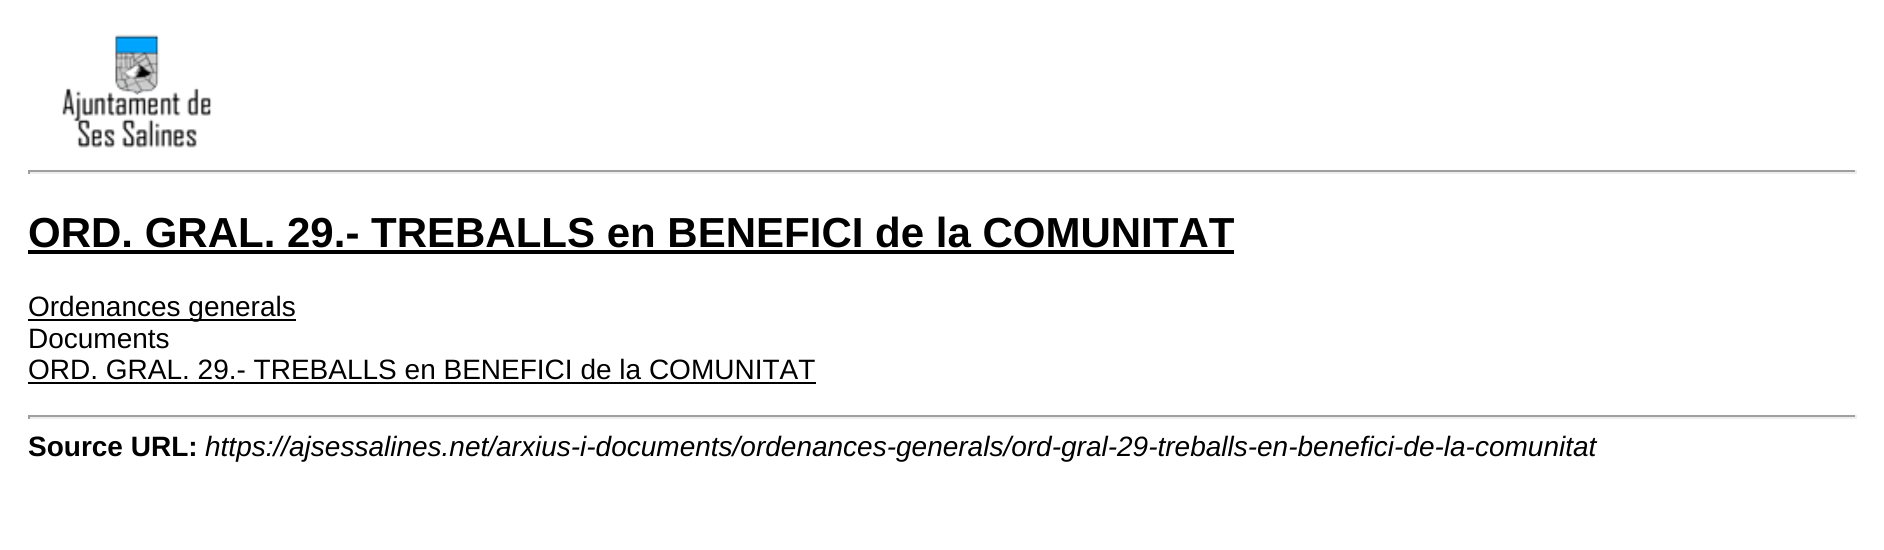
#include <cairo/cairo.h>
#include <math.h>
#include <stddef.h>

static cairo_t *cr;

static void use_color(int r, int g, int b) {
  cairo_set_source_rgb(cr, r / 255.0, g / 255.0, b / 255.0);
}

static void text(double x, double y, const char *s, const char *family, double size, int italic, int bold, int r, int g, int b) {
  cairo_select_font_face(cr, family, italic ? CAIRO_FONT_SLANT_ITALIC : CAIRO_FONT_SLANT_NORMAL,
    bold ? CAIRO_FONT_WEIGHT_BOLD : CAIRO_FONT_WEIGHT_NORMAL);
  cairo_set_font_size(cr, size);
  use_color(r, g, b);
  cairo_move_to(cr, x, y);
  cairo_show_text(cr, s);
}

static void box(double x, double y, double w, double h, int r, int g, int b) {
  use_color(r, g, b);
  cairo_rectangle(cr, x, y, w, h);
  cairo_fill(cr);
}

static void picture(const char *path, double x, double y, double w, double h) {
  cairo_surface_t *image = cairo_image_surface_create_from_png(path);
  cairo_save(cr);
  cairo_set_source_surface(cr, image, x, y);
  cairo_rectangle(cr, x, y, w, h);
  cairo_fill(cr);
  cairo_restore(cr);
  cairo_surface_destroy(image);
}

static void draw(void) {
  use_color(255, 255, 255);
  cairo_paint(cr);
  picture("img_01.png", 62, 34, 150, 114);
  box(28, 170, 1829, 2, 159, 159, 159);
  box(1855, 170, 2, 4, 238, 238, 238);
  box(28, 172, 1829, 2, 238, 238, 238);
  box(28, 170, 2, 4, 159, 159, 159);
  box(28, 250, 1206, 4, 0, 0, 0);
  box(28, 319, 268, 2, 0, 0, 0);
  box(28, 382, 788, 2, 0, 0, 0);
  box(28, 415, 1829, 2, 159, 159, 159);
  box(1855, 415, 2, 4, 238, 238, 238);
  box(28, 417, 1829, 2, 238, 238, 238);
  box(28, 415, 2, 4, 159, 159, 159);
  text(28, 247, "ORD. GRAL. 29.- TREBALLS en BENEFICI de la COMUNITAT", "Liberation Sans", 42, 0, 1, 0, 0, 0);
  text(28, 316, "Ordenances generals", "Liberation Sans", 28, 0, 0, 0, 0, 0);
  text(28, 348, "Documents", "Liberation Sans", 28, 0, 0, 0, 0, 0);
  text(28, 379, "ORD. GRAL. 29.- TREBALLS en BENEFICI de la COMUNITAT", "Liberation Sans", 28, 0, 0, 0, 0, 0);
  text(28, 456, "Source URL:", "Liberation Sans", 28, 0, 1, 0, 0, 0);
  text(205, 456, "https://ajsessalines.net/arxius-i-documents/ordenances-generals/ord-gral-29-treballs-en-benefici-de-la-comunitat", "Liberation Sans", 28, 1, 0, 0, 0, 0);
}

int main(void) {
  cairo_surface_t *surface = cairo_image_surface_create(CAIRO_FORMAT_RGB24, 1884, 550);
  cr = cairo_create(surface);
  cairo_font_options_t *options = cairo_font_options_create();
  cairo_font_options_set_hint_metrics(options, CAIRO_HINT_METRICS_OFF);
  cairo_font_options_set_hint_style(options, CAIRO_HINT_STYLE_NONE);
  cairo_set_font_options(cr, options);
  cairo_set_miter_limit(cr, 4);
  draw();
  cairo_surface_write_to_png(surface, "out.png");
  cairo_font_options_destroy(options);
  cairo_destroy(cr);
  cairo_surface_destroy(surface);
  return 0;
}
